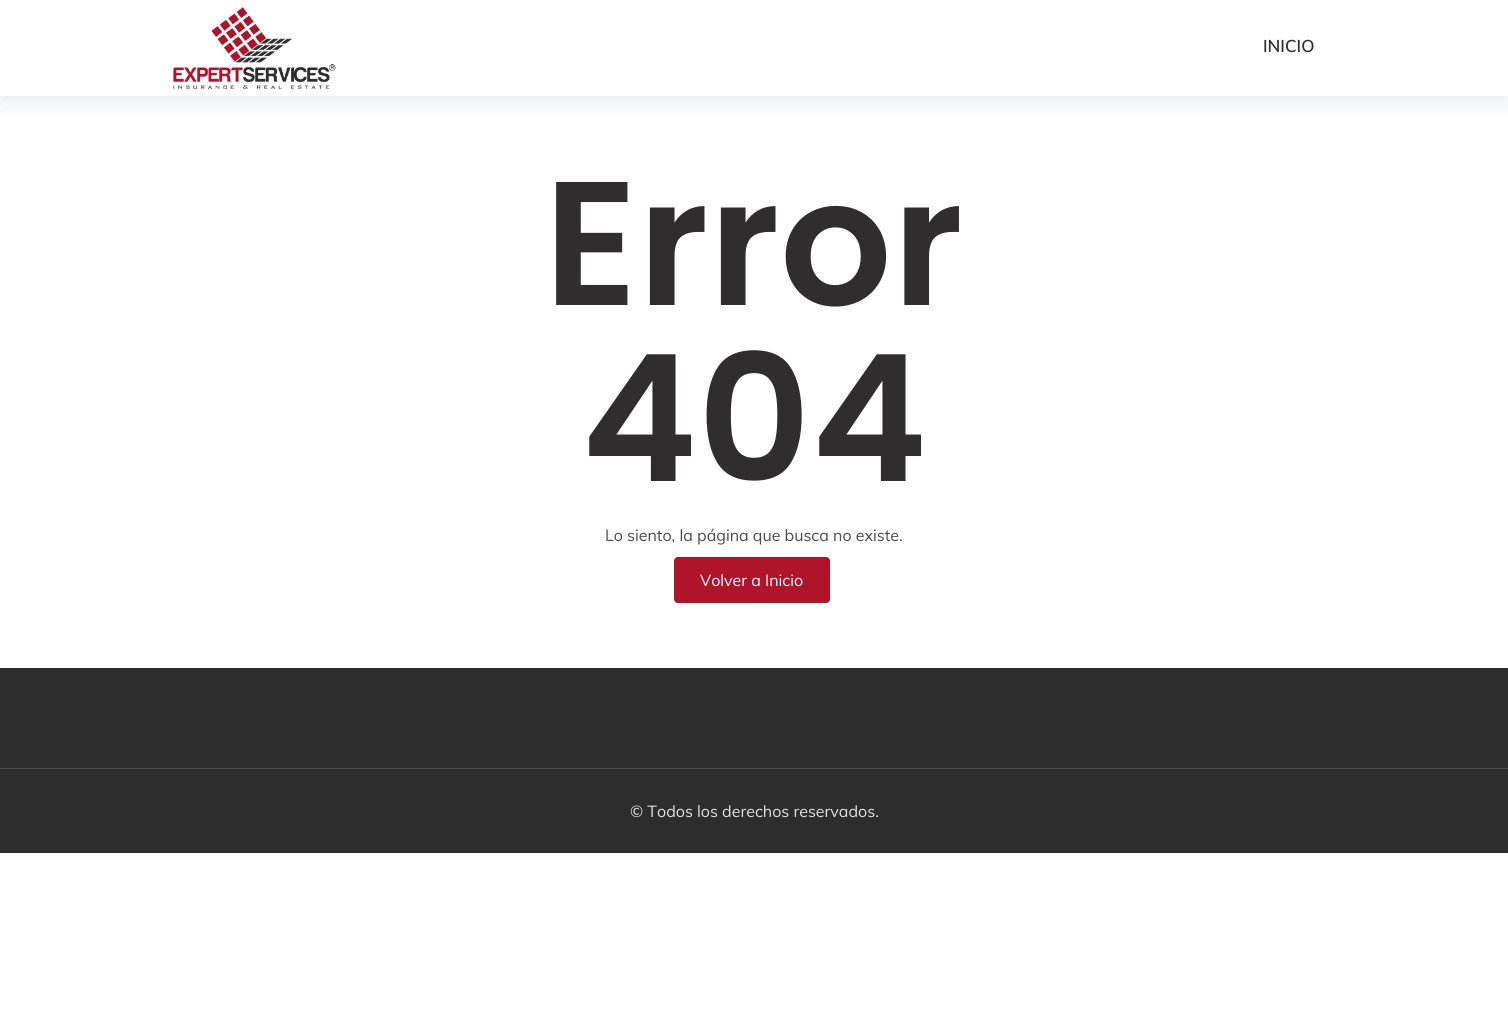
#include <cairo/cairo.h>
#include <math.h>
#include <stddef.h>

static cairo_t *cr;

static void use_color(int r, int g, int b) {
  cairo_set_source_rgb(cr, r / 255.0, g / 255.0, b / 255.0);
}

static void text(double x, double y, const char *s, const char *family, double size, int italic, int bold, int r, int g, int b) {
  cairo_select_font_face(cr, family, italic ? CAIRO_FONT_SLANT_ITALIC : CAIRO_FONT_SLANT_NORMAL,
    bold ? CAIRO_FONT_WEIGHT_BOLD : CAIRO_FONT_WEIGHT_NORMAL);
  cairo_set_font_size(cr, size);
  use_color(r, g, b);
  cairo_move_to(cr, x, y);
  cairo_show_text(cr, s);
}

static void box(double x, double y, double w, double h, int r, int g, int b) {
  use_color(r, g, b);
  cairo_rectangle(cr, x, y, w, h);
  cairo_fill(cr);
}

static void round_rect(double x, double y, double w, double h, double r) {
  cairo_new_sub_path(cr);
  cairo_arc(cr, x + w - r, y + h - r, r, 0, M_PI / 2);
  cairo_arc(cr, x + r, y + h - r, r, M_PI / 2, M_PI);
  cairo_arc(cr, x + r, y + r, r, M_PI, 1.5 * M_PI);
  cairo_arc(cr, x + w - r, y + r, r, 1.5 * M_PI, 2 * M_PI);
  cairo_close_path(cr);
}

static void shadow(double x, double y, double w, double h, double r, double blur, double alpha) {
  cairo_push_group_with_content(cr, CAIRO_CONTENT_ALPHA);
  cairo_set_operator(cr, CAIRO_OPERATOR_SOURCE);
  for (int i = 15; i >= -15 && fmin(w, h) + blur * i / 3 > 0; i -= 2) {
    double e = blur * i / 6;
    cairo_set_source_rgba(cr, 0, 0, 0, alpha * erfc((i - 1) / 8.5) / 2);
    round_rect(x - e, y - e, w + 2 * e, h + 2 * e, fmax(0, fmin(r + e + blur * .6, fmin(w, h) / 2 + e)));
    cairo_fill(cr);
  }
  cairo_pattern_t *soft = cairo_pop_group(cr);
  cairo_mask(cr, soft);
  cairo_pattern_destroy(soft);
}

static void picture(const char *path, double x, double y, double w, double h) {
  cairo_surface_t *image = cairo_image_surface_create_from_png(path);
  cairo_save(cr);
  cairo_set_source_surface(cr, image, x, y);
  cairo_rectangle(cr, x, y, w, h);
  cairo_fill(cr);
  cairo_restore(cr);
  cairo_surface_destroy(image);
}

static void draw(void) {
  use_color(255, 255, 255);
  cairo_paint(cr);
  cairo_save(cr);
  cairo_rectangle(cr, 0, 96, 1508, 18);
  cairo_clip(cr);
  use_color(0, 22, 84);
  shadow(0, 5, 1508, 96, 0, 15, 0.1);
  cairo_restore(cr);
  picture("img_01.png", 173, 7, 163, 82);
  use_color(175, 20, 43);
  round_rect(674.5, 557.5, 155, 45, 3.5);
  cairo_fill_preserve(cr);
  cairo_set_line_width(cr, 1);
  cairo_stroke(cr);
  box(0, 668, 1508, 185, 45, 45, 45);
  box(0, 768, 1508, 1, 82, 82, 82);
  text(1263, 52, "INICIO", "Muli SemiBold", 17, 0, 0, 47, 45, 45);
  text(544, 305, "Error", "Poppins SemiBold", 176, 0, 0, 47, 45, 45);
  text(581, 481, "404", "Poppins SemiBold", 176, 0, 0, 47, 45, 45);
  text(605, 541, "Lo siento, la página que busca no existe.", "Muli", 16, 0, 0, 77, 74, 74);
  text(700, 586, "Volver a Inicio", "Muli", 16, 0, 0, 255, 255, 255);
  text(630, 817, "© Todos los derechos reservados.", "Muli", 16, 0, 0, 225, 225, 225);
}

int main(void) {
  cairo_surface_t *surface = cairo_image_surface_create(CAIRO_FORMAT_RGB24, 1508, 1013);
  cr = cairo_create(surface);
  cairo_font_options_t *options = cairo_font_options_create();
  cairo_font_options_set_hint_metrics(options, CAIRO_HINT_METRICS_OFF);
  cairo_font_options_set_hint_style(options, CAIRO_HINT_STYLE_NONE);
  cairo_set_font_options(cr, options);
  cairo_set_miter_limit(cr, 4);
  draw();
  cairo_surface_write_to_png(surface, "out.png");
  cairo_font_options_destroy(options);
  cairo_destroy(cr);
  cairo_surface_destroy(surface);
  return 0;
}
